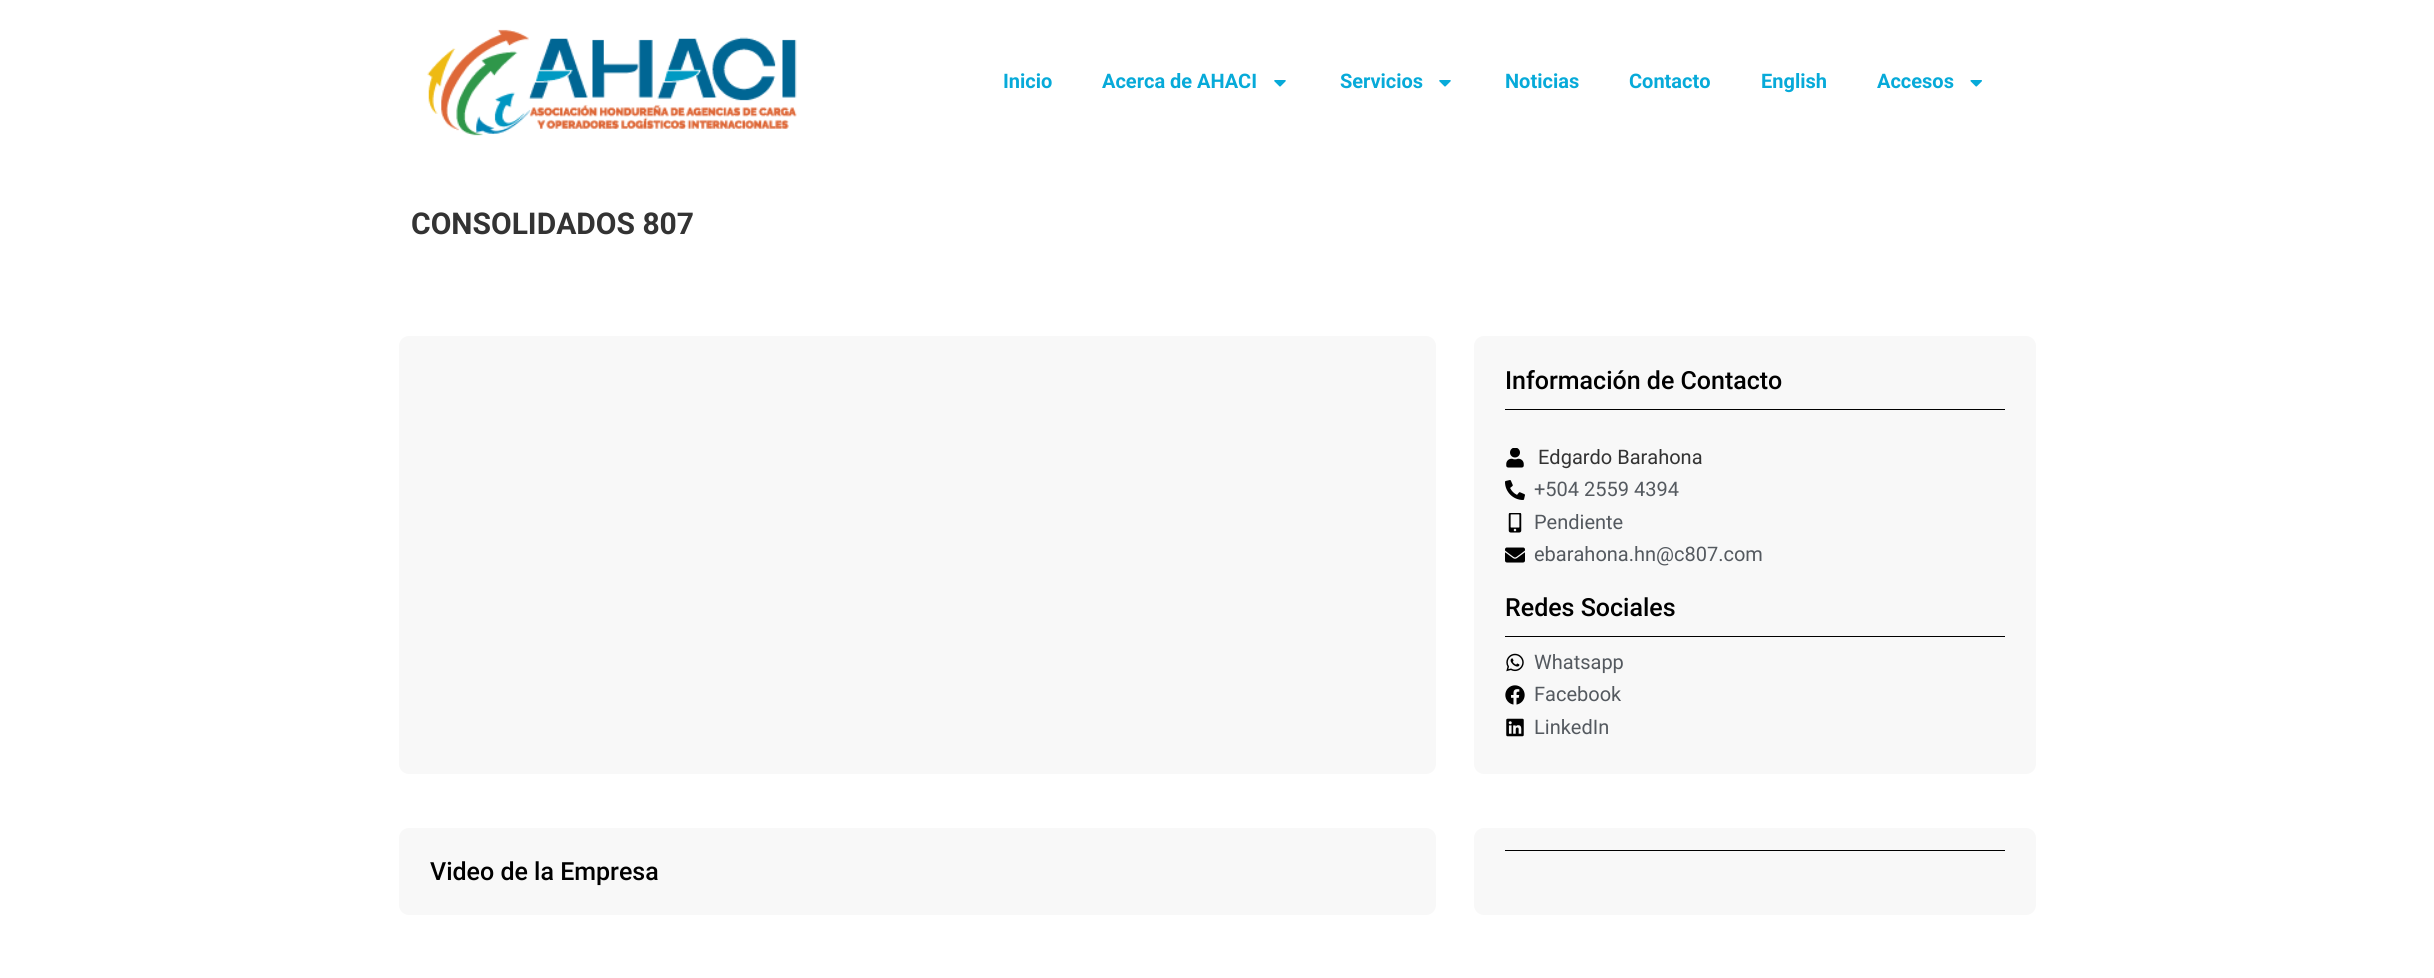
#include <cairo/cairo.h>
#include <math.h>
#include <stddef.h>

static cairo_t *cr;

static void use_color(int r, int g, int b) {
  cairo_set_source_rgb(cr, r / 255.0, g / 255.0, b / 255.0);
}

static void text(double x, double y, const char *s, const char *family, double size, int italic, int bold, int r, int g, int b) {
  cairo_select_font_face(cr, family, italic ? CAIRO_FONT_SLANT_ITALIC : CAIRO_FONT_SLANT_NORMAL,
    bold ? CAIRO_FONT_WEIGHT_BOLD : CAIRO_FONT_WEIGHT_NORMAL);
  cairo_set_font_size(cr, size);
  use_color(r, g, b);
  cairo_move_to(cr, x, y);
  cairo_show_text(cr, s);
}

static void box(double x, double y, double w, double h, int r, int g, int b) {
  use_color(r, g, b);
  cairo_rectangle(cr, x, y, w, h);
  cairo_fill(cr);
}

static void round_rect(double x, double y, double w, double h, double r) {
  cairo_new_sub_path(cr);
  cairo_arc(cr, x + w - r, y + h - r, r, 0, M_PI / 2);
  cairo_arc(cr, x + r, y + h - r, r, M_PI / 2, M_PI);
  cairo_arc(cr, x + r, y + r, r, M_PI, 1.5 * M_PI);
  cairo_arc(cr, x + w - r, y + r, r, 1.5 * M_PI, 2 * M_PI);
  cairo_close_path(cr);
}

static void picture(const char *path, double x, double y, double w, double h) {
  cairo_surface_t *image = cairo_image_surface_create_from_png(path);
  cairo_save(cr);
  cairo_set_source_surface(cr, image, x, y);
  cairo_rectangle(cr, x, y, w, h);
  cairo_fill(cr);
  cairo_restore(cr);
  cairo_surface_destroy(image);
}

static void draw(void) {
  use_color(255, 255, 255);
  cairo_paint(cr);
  picture("img_01.png", 427, 29, 370, 107);
  picture("img_02.png", 1274, 80, 12, 7);
  picture("img_02.png", 1439, 80, 12, 7);
  picture("img_03.png", 1970, 80, 12, 7);
  use_color(248, 248, 248);
  round_rect(399, 336, 1037, 438, 10);
  cairo_fill(cr);
  round_rect(1474, 336, 562, 438, 10);
  cairo_fill(cr);
  box(1505, 409, 500, 1, 0, 0, 0);
  picture("img_04.png", 1506, 448, 18, 20);
  picture("img_05.png", 1505, 480, 20, 20);
  picture("img_06.png", 1508, 513, 14, 20);
  picture("img_07.png", 1505, 547, 20, 16);
  box(1505, 636, 500, 1, 0, 0, 0);
  picture("img_08.png", 1506, 653, 18, 19);
  picture("img_09.png", 1505, 685, 20, 20);
  picture("img_10.png", 1506, 718, 18, 19);
  use_color(248, 248, 248);
  round_rect(399, 828, 1037, 87, 10);
  cairo_fill(cr);
  round_rect(1474, 828, 562, 87, 10);
  cairo_fill(cr);
  box(1505, 850, 500, 1, 0, 0, 0);
  text(1003, 88, "Inicio", "Roboto", 20, 0, 1, 7, 170, 217);
  text(1102, 88, "Acerca de AHACI", "Roboto", 20, 0, 1, 7, 170, 217);
  text(1340, 88, "Servicios", "Roboto", 20, 0, 1, 7, 170, 217);
  text(1505, 88, "Noticias", "Roboto", 20, 0, 1, 7, 170, 217);
  text(1629, 88, "Contacto", "Roboto", 20, 0, 1, 7, 170, 217);
  text(1761, 88, "English", "Roboto", 20, 0, 1, 7, 170, 217);
  text(1877, 88, "Accesos", "Roboto", 20, 0, 1, 7, 170, 217);
  text(411, 234, "CONSOLIDADOS 807", "Roboto", 30, 0, 1, 51, 51, 51);
  text(1505, 389, "Información de Contacto", "Roboto Medium", 25, 0, 0, 0, 0, 0);
  text(1538, 464, "Edgardo Barahona", "Roboto", 20, 0, 0, 51, 51, 51);
  text(1534, 496, "+504 2559 4394", "Roboto", 20, 0, 0, 84, 89, 95);
  text(1534, 529, "Pendiente", "Roboto", 20, 0, 0, 84, 89, 95);
  text(1534, 561, "ebarahona.hn@c807.com", "Roboto", 20, 0, 0, 84, 89, 95);
  text(1505, 616, "Redes Sociales", "Roboto Medium", 25, 0, 0, 0, 0, 0);
  text(1534, 669, "Whatsapp", "Roboto", 20, 0, 0, 84, 89, 95);
  text(1534, 701, "Facebook", "Roboto", 20, 0, 0, 84, 89, 95);
  text(1534, 734, "LinkedIn", "Roboto", 20, 0, 0, 84, 89, 95);
  text(430, 880, "Video de la Empresa", "Roboto Medium", 25, 0, 0, 0, 0, 0);
}

int main(void) {
  cairo_surface_t *surface = cairo_image_surface_create(CAIRO_FORMAT_RGB24, 2434, 978);
  cr = cairo_create(surface);
  cairo_font_options_t *options = cairo_font_options_create();
  cairo_font_options_set_hint_metrics(options, CAIRO_HINT_METRICS_OFF);
  cairo_font_options_set_hint_style(options, CAIRO_HINT_STYLE_NONE);
  cairo_set_font_options(cr, options);
  cairo_set_miter_limit(cr, 4);
  draw();
  cairo_surface_write_to_png(surface, "out.png");
  cairo_font_options_destroy(options);
  cairo_destroy(cr);
  cairo_surface_destroy(surface);
  return 0;
}
